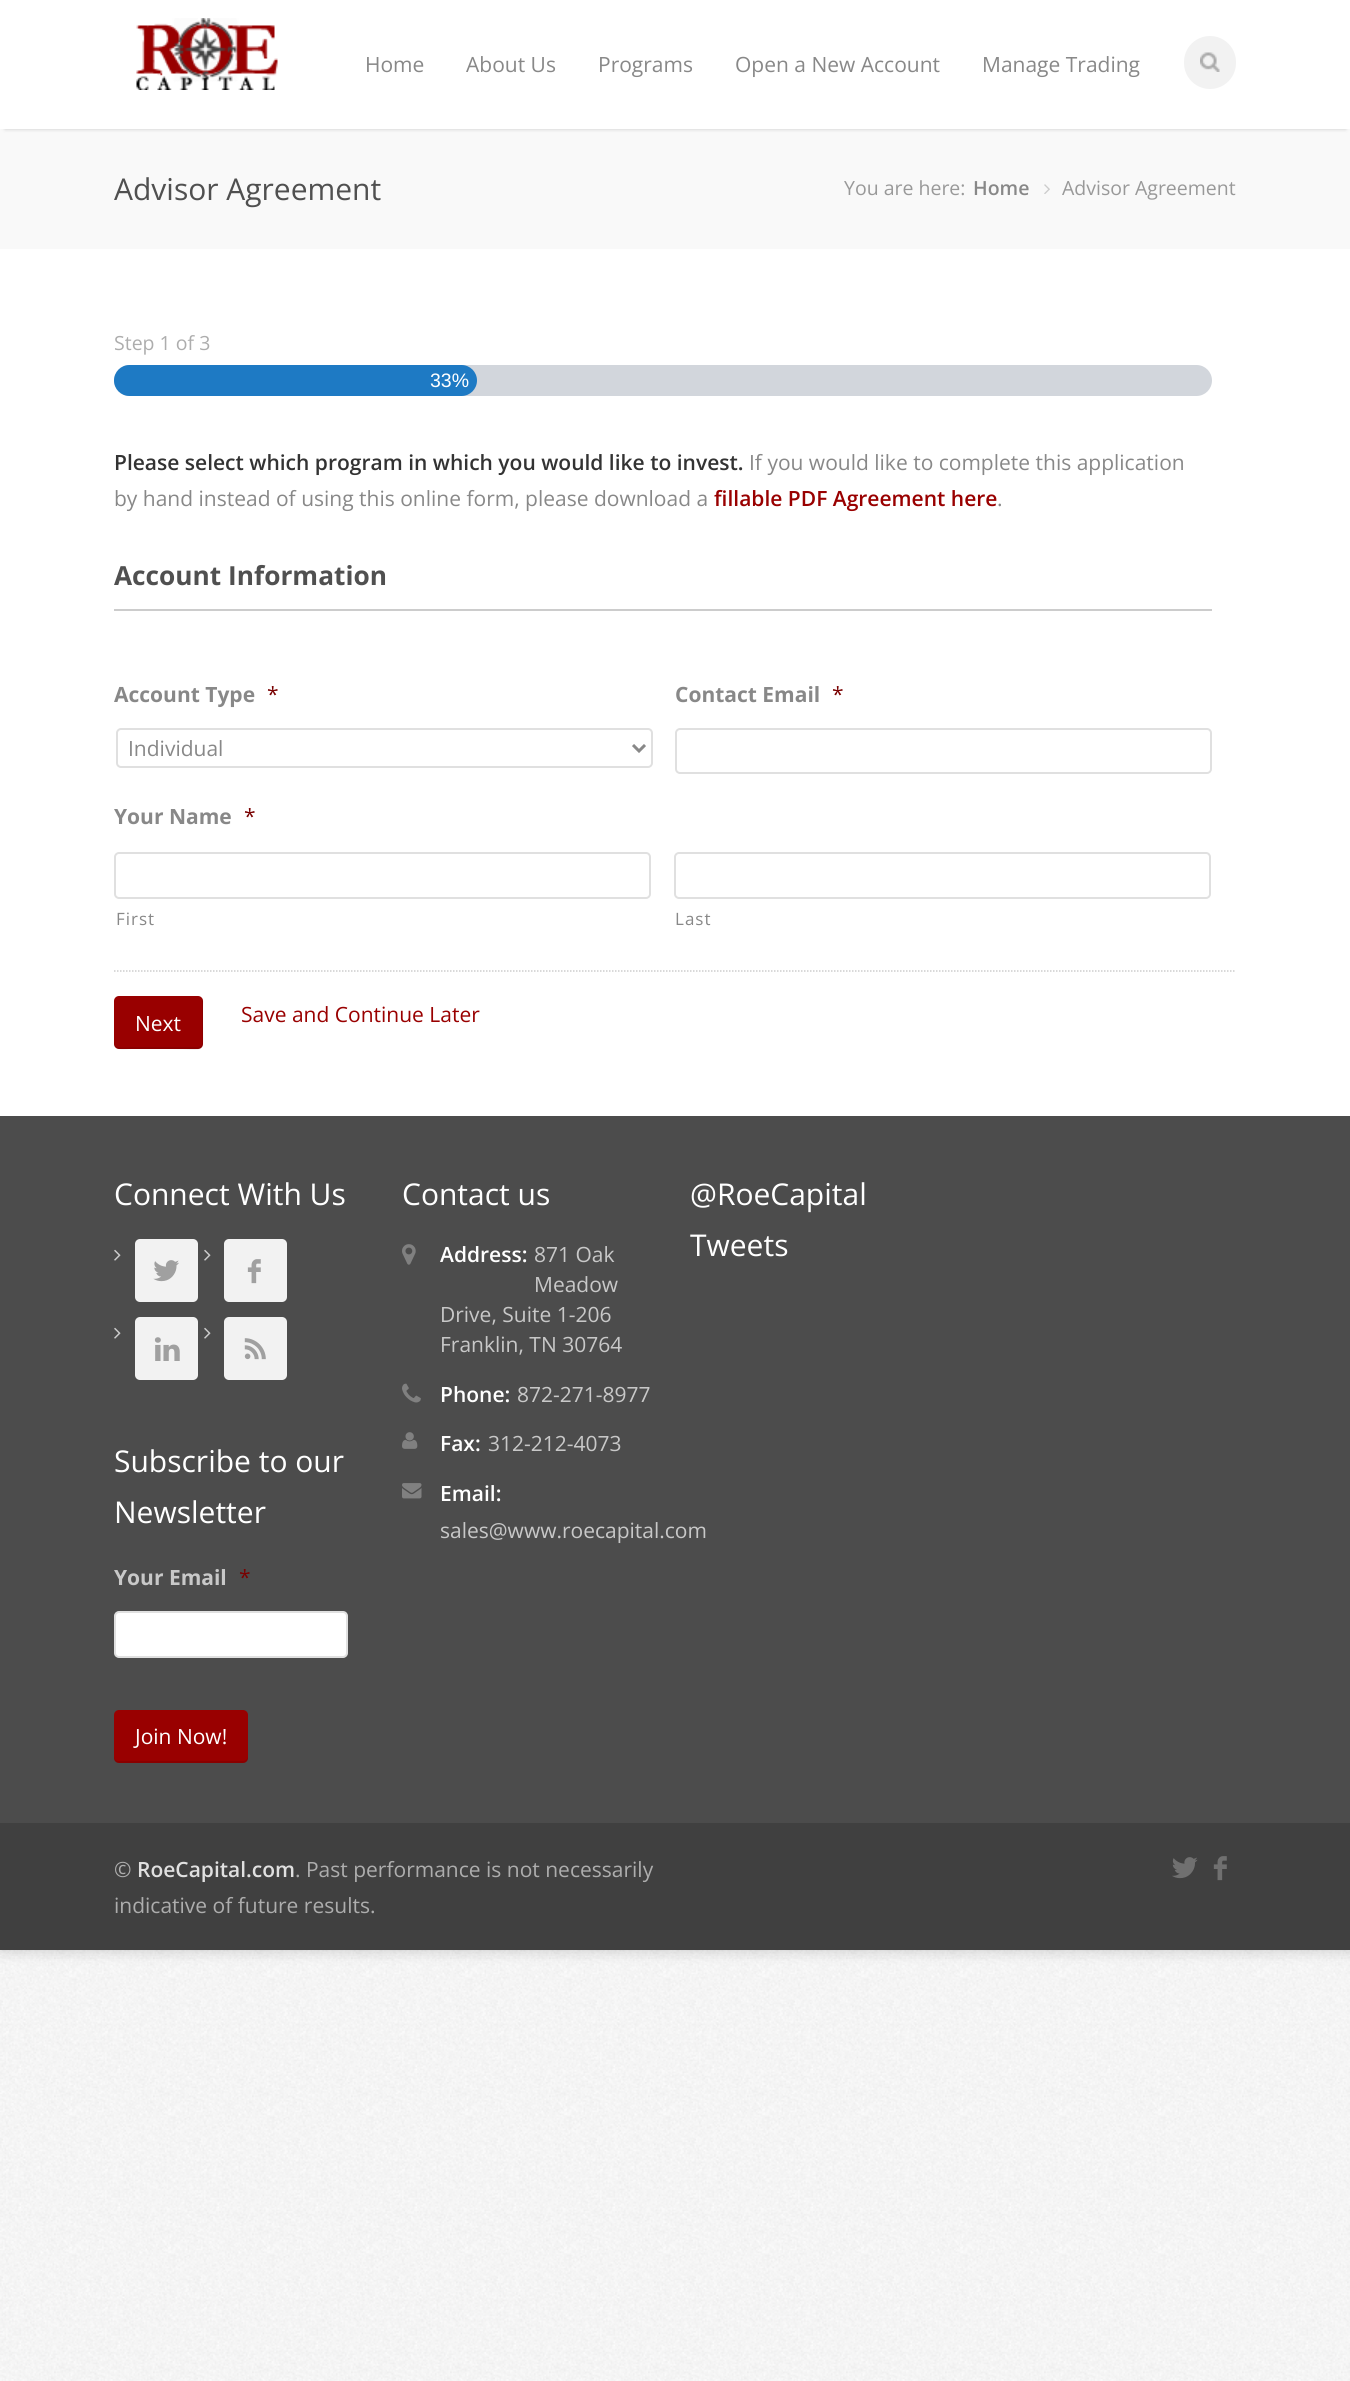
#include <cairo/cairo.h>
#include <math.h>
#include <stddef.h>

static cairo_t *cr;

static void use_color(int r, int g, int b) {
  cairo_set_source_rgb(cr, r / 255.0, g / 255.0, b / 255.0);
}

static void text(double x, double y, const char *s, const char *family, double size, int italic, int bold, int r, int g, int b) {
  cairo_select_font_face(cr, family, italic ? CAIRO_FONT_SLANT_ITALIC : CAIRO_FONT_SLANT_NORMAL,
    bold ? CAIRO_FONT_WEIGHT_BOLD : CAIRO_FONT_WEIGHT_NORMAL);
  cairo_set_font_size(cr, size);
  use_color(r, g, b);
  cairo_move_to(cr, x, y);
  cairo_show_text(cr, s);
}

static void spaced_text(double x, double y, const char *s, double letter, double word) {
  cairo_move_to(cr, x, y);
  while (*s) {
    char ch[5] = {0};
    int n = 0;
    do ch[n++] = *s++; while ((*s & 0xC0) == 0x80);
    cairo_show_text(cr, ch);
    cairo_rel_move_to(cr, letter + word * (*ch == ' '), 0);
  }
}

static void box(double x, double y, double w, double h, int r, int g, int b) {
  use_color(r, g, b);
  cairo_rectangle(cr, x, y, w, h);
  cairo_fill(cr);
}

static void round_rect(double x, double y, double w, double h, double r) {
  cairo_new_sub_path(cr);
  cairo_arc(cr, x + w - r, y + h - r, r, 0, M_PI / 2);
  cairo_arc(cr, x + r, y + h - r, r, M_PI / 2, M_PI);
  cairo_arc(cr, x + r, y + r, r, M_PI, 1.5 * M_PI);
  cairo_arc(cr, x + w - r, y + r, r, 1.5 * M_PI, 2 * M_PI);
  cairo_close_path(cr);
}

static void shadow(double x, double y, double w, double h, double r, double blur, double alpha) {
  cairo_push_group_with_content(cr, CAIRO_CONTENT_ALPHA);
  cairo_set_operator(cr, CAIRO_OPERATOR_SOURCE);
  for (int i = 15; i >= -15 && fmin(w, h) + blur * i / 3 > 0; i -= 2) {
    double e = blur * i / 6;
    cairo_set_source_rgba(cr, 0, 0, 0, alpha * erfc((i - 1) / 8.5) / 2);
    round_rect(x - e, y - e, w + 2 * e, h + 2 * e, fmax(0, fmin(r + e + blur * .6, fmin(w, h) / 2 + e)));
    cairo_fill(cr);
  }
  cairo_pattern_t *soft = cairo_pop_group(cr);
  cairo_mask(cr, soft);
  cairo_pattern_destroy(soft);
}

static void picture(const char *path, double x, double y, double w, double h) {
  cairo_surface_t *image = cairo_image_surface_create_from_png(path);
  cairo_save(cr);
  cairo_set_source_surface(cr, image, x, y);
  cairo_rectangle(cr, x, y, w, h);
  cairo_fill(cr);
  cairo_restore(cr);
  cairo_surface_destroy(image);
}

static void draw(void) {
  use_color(255, 255, 255);
  cairo_paint(cr);
  picture("img_01.png", 0, 1950, 1350, 431);
  use_color(0, 0, 0);
  shadow(0, 0, 1350, 1950, 0, 7.5, 0.2);
  box(0, 129, 1350, 120, 249, 249, 249);
  use_color(0, 0, 0);
  shadow(5, 9, 1341, 120, 0, 2, 0.2);
  box(0, 0, 1350, 129, 255, 255, 255);
  picture("img_02.png", 136, 18, 142, 72);
  use_color(242, 242, 242);
  round_rect(1184, 36, 52, 53, 26);
  cairo_fill(cr);
  picture("img_03.png", 1200, 52, 20, 20);
  box(0, 249, 1350, 867, 255, 255, 255);
  picture("img_04.png", 1044, 184, 6, 10);
  use_color(210, 214, 220);
  round_rect(114, 365, 1098, 31, 15.5);
  cairo_fill(cr);
  use_color(30, 122, 196);
  round_rect(114, 365, 363, 31, 15.5);
  cairo_fill(cr);
  box(114, 609, 1098, 2, 204, 204, 204);
  round_rect(117, 729, 535, 38, 4);
  use_color(224, 224, 224);
  cairo_stroke(cr);
  cairo_new_path(cr);
  cairo_move_to(cr, 633, 745);
  cairo_line_to(cr, 639, 751);
  cairo_line_to(cr, 645, 745);
  use_color(136, 136, 136);
  cairo_set_line_width(cr, 3);
  cairo_stroke(cr);
  round_rect(676, 729, 535, 44, 4);
  use_color(224, 224, 224);
  cairo_set_line_width(cr, 2);
  cairo_stroke(cr);
  round_rect(115, 853, 535, 45, 4);
  cairo_stroke(cr);
  round_rect(675, 853, 535, 45, 4);
  cairo_stroke(cr);
  cairo_new_path(cr);
  cairo_move_to(cr, 114, 971);
  cairo_line_to(cr, 1236, 971);
  use_color(204, 204, 204);
  cairo_set_line_width(cr, 1.5);
  cairo_set_dash(cr, (double[]){1.5, 1.5}, 2, 0);
  cairo_stroke(cr);
  use_color(153, 0, 0);
  round_rect(114, 996, 89, 53, 5);
  cairo_fill(cr);
  cairo_set_source_rgba(cr, 0, 0, 0, 0.1);
  cairo_new_path(cr);
  cairo_move_to(cr, 114, 1042);
  cairo_curve_to(cr, 114, 1052, 124, 1049, 132, 1049);
  cairo_line_to(cr, 172, 1049);
  cairo_curve_to(cr, 208, 1049, 203, 1056, 203, 1022);
  cairo_line_to(cr, 203, 1008);
  cairo_curve_to(cr, 203, 1006, 204, 1000, 202, 998);
  cairo_line_to(cr, 202, 1028);
  cairo_curve_to(cr, 202, 1049, 206, 1047, 185, 1047);
  cairo_line_to(cr, 131, 1047);
  cairo_curve_to(cr, 128, 1047, 114, 1050, 114, 1042);
  cairo_close_path(cr);
  cairo_fill(cr);
  box(0, 1116, 1350, 707, 76, 76, 76);
  picture("img_05.png", 114, 1249, 7, 12);
  use_color(242, 242, 242);
  round_rect(135, 1239, 63, 63, 5);
  cairo_fill(cr);
  picture("img_06.png", 153, 1260, 26, 22);
  picture("img_05.png", 204, 1249, 7, 12);
  round_rect(224, 1239, 63, 63, 5);
  cairo_fill(cr);
  picture("img_07.png", 247, 1259, 14, 25);
  picture("img_05.png", 114, 1327, 7, 12);
  round_rect(135, 1317, 63, 63, 5);
  cairo_fill(cr);
  picture("img_08.png", 154, 1337, 26, 24);
  picture("img_05.png", 204, 1327, 7, 12);
  round_rect(224, 1317, 63, 63, 5);
  cairo_fill(cr);
  picture("img_09.png", 244, 1338, 22, 22);
  use_color(255, 255, 255);
  round_rect(115, 1612, 232, 45, 4);
  cairo_fill_preserve(cr);
  use_color(224, 224, 224);
  cairo_set_line_width(cr, 2);
  cairo_set_dash(cr, NULL, 0, 0);
  cairo_stroke(cr);
  use_color(153, 0, 0);
  round_rect(114, 1710, 134, 53, 5);
  cairo_fill(cr);
  cairo_set_source_rgba(cr, 0, 0, 0, 0.1);
  cairo_new_path(cr);
  cairo_move_to(cr, 114, 1756);
  cairo_line_to(cr, 114, 1758);
  cairo_curve_to(cr, 114, 1761, 116, 1763, 119, 1763);
  cairo_line_to(cr, 243, 1763);
  cairo_curve_to(cr, 246, 1763, 248, 1761, 248, 1758);
  cairo_line_to(cr, 248, 1756);
  cairo_curve_to(cr, 248, 1759, 245, 1761, 243, 1761);
  cairo_line_to(cr, 118, 1761);
  cairo_curve_to(cr, 116, 1761, 114, 1759, 114, 1756);
  cairo_close_path(cr);
  cairo_fill(cr);
  picture("img_10.png", 402, 1244, 14, 21);
  picture("img_11.png", 402, 1383, 19, 20);
  picture("img_12.png", 402, 1432, 16, 17);
  picture("img_13.png", 402, 1483, 20, 16);
  box(0, 1823, 1350, 127, 64, 64, 64);
  picture("img_14.png", 1172, 1857, 26, 22);
  picture("img_15.png", 1213, 1856, 14, 25);
  text(365, 72, "Home", "Open Sans", 21, 0, 0, 136, 136, 136);
  text(466, 72, "About Us", "Open Sans", 21, 0, 0, 136, 136, 136);
  text(598, 72, "Programs", "Open Sans", 21, 0, 0, 136, 136, 136);
  text(735, 72, "Open a New Account", "Open Sans", 21, 0, 0, 136, 136, 136);
  text(982, 72, "Manage Trading", "Open Sans", 21, 0, 0, 136, 136, 136);
  text(114, 200, "Advisor Agreement", "Open Sans", 30, 0, 0, 80, 80, 80);
  text(844, 195, "You are here:", "Open Sans", 19.5, 0, 0, 153, 153, 153);
  text(973, 195, "Home", "Open Sans SemiBold", 19.5, 0, 0, 136, 136, 136);
  text(1062, 195, "Advisor Agreement", "Open Sans", 19.5, 0, 0, 153, 153, 153);
  text(114, 350, "Step 1 of 3", "Open Sans", 19.5, 0, 0, 173, 173, 173);
  text(430, 387, "33%", "Liberation Sans", 19.5, 0, 0, 255, 255, 255);
  text(114, 470, "Please select which program in which you would like to invest.", "Open Sans SemiBold", 21, 0, 0, 51, 51, 51);
  text(749, 470, "If you would like to complete this application", "Open Sans", 21, 0, 0, 136, 136, 136);
  text(114, 506, "by hand instead of using this online form, please download a", "Open Sans", 21, 0, 0, 136, 136, 136);
  text(714, 506, "fillable PDF Agreement here", "Open Sans SemiBold", 21, 0, 0, 153, 0, 0);
  text(997, 506, ".", "Open Sans", 21, 0, 0, 136, 136, 136);
  text(114, 585, "Account Information", "Open Sans", 26.25, 0, 1, 80, 80, 80);
  text(114, 702, "Account Type", "Open Sans", 21, 0, 1, 136, 136, 136);
  text(267, 702, "*", "Open Sans", 21, 0, 0, 121, 0, 0);
  text(128, 756, "Individual", "Open Sans", 21, 0, 0, 136, 136, 136);
  text(675, 702, "Contact Email", "Open Sans", 21, 0, 1, 136, 136, 136);
  text(832, 702, "*", "Open Sans", 21, 0, 0, 121, 0, 0);
  text(114, 824, "Your Name", "Open Sans", 21, 0, 1, 136, 136, 136);
  text(244, 824, "*", "Open Sans", 21, 0, 0, 121, 0, 0);
  cairo_set_font_size(cr, 17);
  use_color(136, 136, 136);
  spaced_text(116, 925, "First", 1, 0);
  spaced_text(675, 925, "Last", 1, 0);
  text(135, 1031, "Next", "Open Sans", 21, 0, 0, 255, 255, 255);
  text(241, 1022, "Save and Continue Later", "Open Sans", 21, 0, 0, 153, 0, 0);
  text(114, 1205, "Connect With Us", "Open Sans", 30, 0, 0, 255, 255, 255);
  text(114, 1472, "Subscribe to our", "Open Sans", 30, 0, 0, 255, 255, 255);
  text(114, 1523, "Newsletter", "Open Sans", 30, 0, 0, 255, 255, 255);
  text(114, 1585, "Your Email", "Open Sans", 21, 0, 1, 200, 200, 200);
  text(239, 1585, "*", "Open Sans", 21, 0, 0, 121, 0, 0);
  text(135, 1744, "Join Now!", "Open Sans", 21, 0, 0, 255, 255, 255);
  text(402, 1205, "Contact us", "Open Sans", 30, 0, 0, 255, 255, 255);
  text(440, 1262, "Address:", "Open Sans SemiBold", 21, 0, 0, 255, 255, 255);
  text(534, 1262, "871 Oak", "Open Sans", 21, 0, 0, 200, 200, 200);
  text(534, 1292, "Meadow", "Open Sans", 21, 0, 0, 200, 200, 200);
  text(440, 1322, "Drive, Suite 1-206", "Open Sans", 21, 0, 0, 200, 200, 200);
  text(440, 1352, "Franklin, TN 30764", "Open Sans", 21, 0, 0, 200, 200, 200);
  text(440, 1402, "Phone:", "Open Sans SemiBold", 21, 0, 0, 255, 255, 255);
  text(517, 1402, "872-271-8977", "Open Sans", 21, 0, 0, 200, 200, 200);
  text(440, 1451, "Fax:", "Open Sans SemiBold", 21, 0, 0, 255, 255, 255);
  text(488, 1451, "312-212-4073", "Open Sans", 21, 0, 0, 200, 200, 200);
  text(440, 1501, "Email:", "Open Sans SemiBold", 21, 0, 0, 255, 255, 255);
  text(440, 1538, "sales@www.roecapital.com", "Open Sans", 21, 0, 0, 200, 200, 200);
  text(690, 1205, "@RoeCapital", "Open Sans", 30, 0, 0, 255, 255, 255);
  text(690, 1256, "Tweets", "Open Sans", 30, 0, 0, 255, 255, 255);
  text(114, 1877, "©", "Open Sans", 21, 0, 0, 173, 173, 173);
  text(137, 1877, "RoeCapital.com", "Open Sans SemiBold", 21, 0, 0, 224, 224, 224);
  text(295, 1877, ". Past performance is not necessarily", "Open Sans", 21, 0, 0, 173, 173, 173);
  text(114, 1913, "indicative of future results.", "Open Sans", 21, 0, 0, 173, 173, 173);
}

int main(void) {
  cairo_surface_t *surface = cairo_image_surface_create(CAIRO_FORMAT_RGB24, 1350, 2381);
  cr = cairo_create(surface);
  cairo_font_options_t *options = cairo_font_options_create();
  cairo_font_options_set_hint_metrics(options, CAIRO_HINT_METRICS_OFF);
  cairo_font_options_set_hint_style(options, CAIRO_HINT_STYLE_NONE);
  cairo_set_font_options(cr, options);
  cairo_set_miter_limit(cr, 4);
  draw();
  cairo_surface_write_to_png(surface, "out.png");
  cairo_font_options_destroy(options);
  cairo_destroy(cr);
  cairo_surface_destroy(surface);
  return 0;
}
